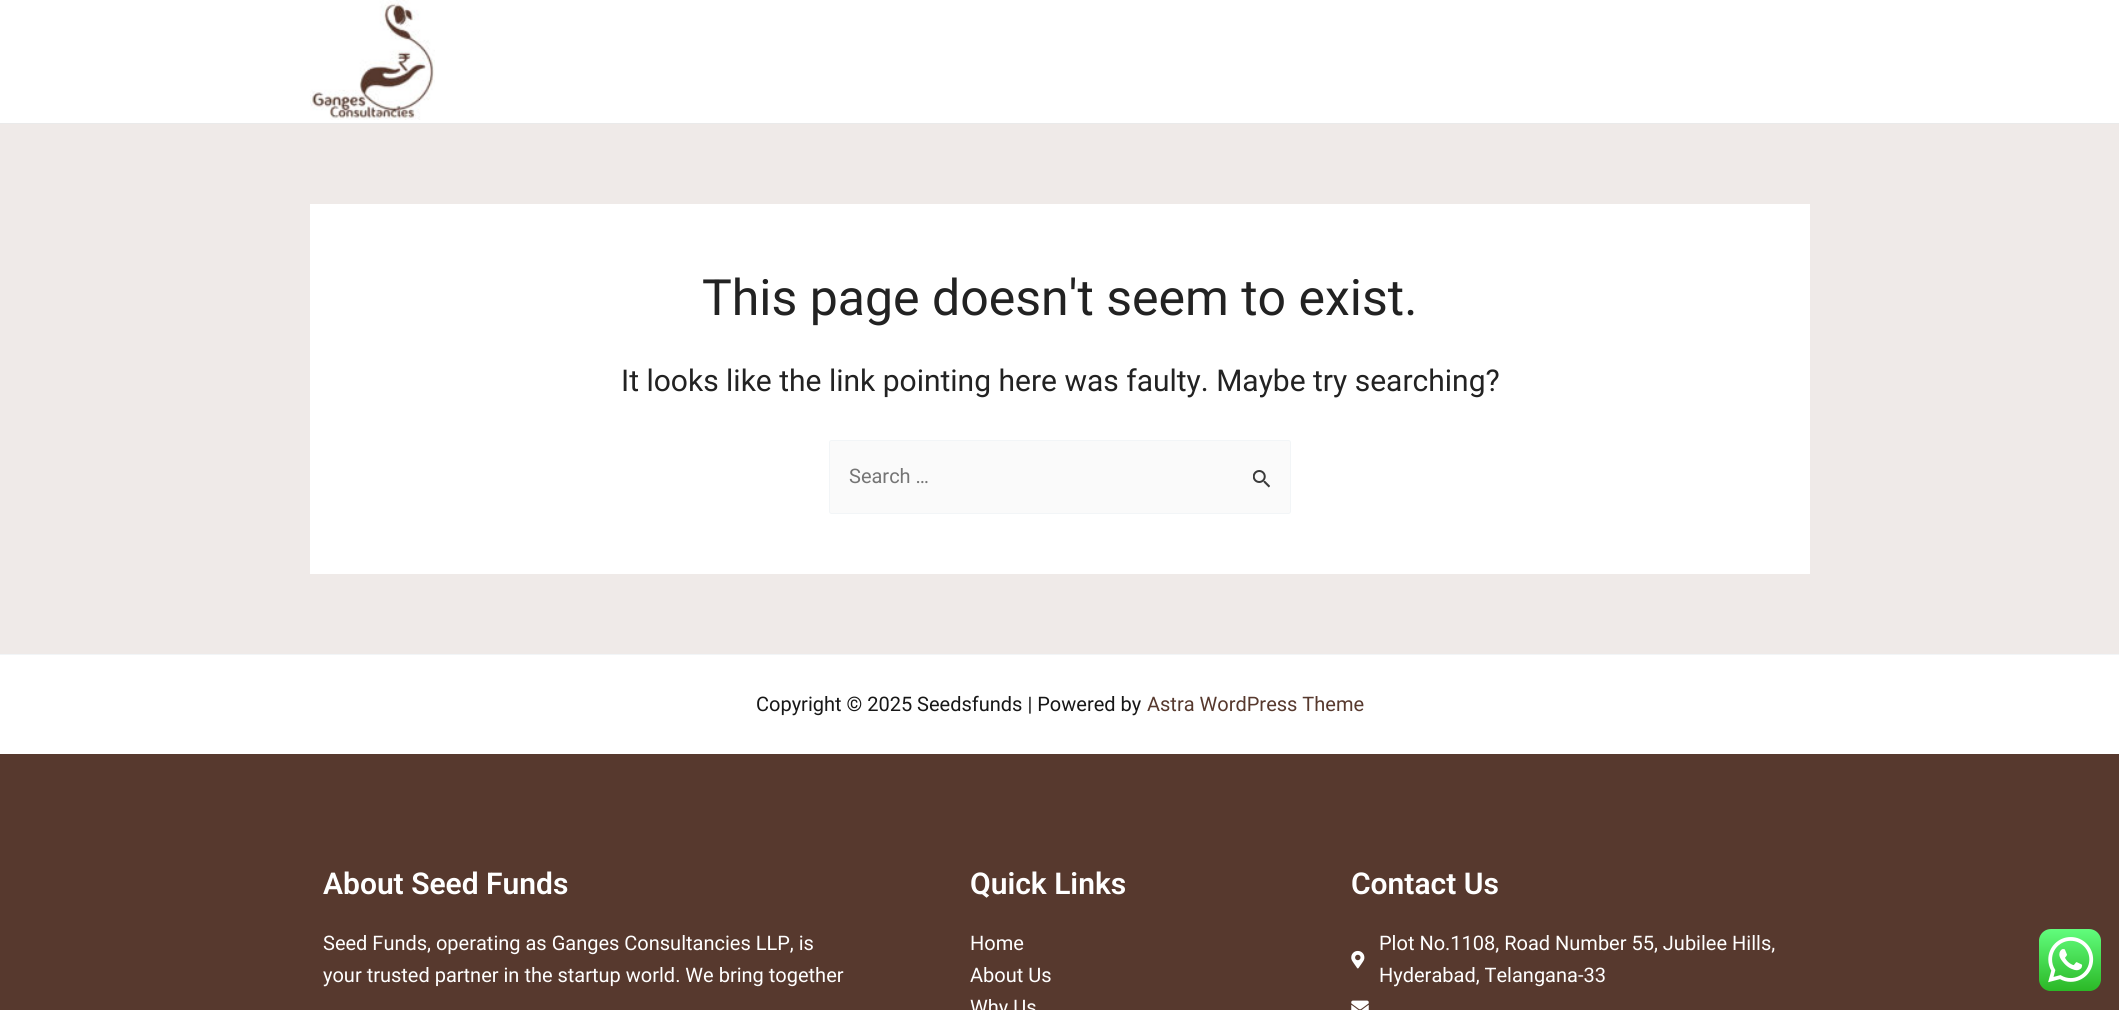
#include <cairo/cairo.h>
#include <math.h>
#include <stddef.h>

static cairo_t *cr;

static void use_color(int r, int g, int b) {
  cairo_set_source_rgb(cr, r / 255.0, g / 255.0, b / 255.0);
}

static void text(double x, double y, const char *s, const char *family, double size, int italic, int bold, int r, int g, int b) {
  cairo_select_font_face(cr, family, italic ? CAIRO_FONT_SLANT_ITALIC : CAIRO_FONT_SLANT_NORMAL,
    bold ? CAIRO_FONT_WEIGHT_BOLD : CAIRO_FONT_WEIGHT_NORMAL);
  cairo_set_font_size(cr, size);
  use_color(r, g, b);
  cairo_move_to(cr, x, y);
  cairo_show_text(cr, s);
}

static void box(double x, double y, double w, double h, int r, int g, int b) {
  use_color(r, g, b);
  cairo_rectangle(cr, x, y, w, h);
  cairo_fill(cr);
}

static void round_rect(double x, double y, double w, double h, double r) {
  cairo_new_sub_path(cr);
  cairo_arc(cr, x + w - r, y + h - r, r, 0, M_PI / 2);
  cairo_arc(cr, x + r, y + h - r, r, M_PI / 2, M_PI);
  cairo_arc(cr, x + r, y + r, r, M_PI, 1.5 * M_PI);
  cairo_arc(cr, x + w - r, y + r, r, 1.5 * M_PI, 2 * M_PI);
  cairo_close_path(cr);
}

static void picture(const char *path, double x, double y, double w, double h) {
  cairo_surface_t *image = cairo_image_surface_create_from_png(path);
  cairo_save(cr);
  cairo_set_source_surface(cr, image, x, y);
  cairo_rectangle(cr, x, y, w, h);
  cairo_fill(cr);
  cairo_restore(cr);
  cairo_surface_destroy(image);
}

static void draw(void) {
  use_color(239, 234, 232);
  cairo_paint(cr);
  box(0, 0, 2119, 123, 255, 255, 255);
  box(0, 123, 2119, 1, 234, 234, 234);
  picture("img_01.png", 310, 0, 125, 120);
  box(310, 204, 1500, 370, 255, 255, 255);
  use_color(250, 250, 250);
  round_rect(829.5, 440.5, 461, 73, 2);
  cairo_fill_preserve(cr);
  use_color(242, 245, 247);
  cairo_set_line_width(cr, 1);
  cairo_stroke(cr);
  picture("img_02.png", 1253, 470, 17, 18);
  box(0, 655, 2119, 99, 255, 255, 255);
  box(0, 654, 2119, 1, 242, 245, 247);
  box(0, 754, 2119, 256, 87, 57, 46);
  picture("img_03.png", 1351, 950, 14, 19);
  picture("img_04.png", 1351, 1000, 18, 10);
  picture("img_05.png", 2039, 929, 62, 62);
  text(702, 315, "This page doesn't seem to exist.", "Roboto", 50, 0, 0, 34, 34, 34);
  text(621, 391, "It looks like the link pointing here was faulty. Maybe try searching?", "Roboto", 30, 0, 0, 34, 34, 34);
  text(849, 483, "Search …", "Roboto", 20, 0, 0, 117, 117, 117);
  text(756, 711, "Copyright © 2025 Seedsfunds | Powered by", "Roboto", 20, 0, 0, 23, 23, 23);
  text(1147, 711, "Astra WordPress Theme", "Roboto", 20, 0, 0, 87, 57, 46);
  text(323, 894, "About Seed Funds", "Roboto SemiBold", 30, 0, 0, 255, 255, 255);
  text(323, 950, "Seed Funds, operating as Ganges Consultancies LLP, is", "Roboto", 20, 0, 0, 255, 255, 255);
  text(323, 982, "your trusted partner in the startup world. We bring together", "Roboto", 20, 0, 0, 255, 255, 255);
  text(970, 894, "Quick Links", "Roboto SemiBold", 30, 0, 0, 255, 255, 255);
  text(970, 950, "Home", "Roboto", 20, 0, 0, 255, 255, 255);
  text(970, 982, "About Us", "Roboto", 20, 0, 0, 255, 255, 255);
  text(970, 1014, "Why Us", "Roboto", 20, 0, 0, 255, 255, 255);
  text(1351, 894, "Contact Us", "Roboto SemiBold", 30, 0, 0, 255, 255, 255);
  text(1379, 950, "Plot No.1108, Road Number 55, Jubilee Hills,", "Roboto", 20, 0, 0, 255, 255, 255);
  text(1379, 982, "Hyderabad, Telangana-33", "Roboto", 20, 0, 0, 255, 255, 255);
}

int main(void) {
  cairo_surface_t *surface = cairo_image_surface_create(CAIRO_FORMAT_RGB24, 2119, 1010);
  cr = cairo_create(surface);
  cairo_font_options_t *options = cairo_font_options_create();
  cairo_font_options_set_hint_metrics(options, CAIRO_HINT_METRICS_OFF);
  cairo_font_options_set_hint_style(options, CAIRO_HINT_STYLE_NONE);
  cairo_set_font_options(cr, options);
  cairo_set_miter_limit(cr, 4);
  draw();
  cairo_surface_write_to_png(surface, "out.png");
  cairo_font_options_destroy(options);
  cairo_destroy(cr);
  cairo_surface_destroy(surface);
  return 0;
}
